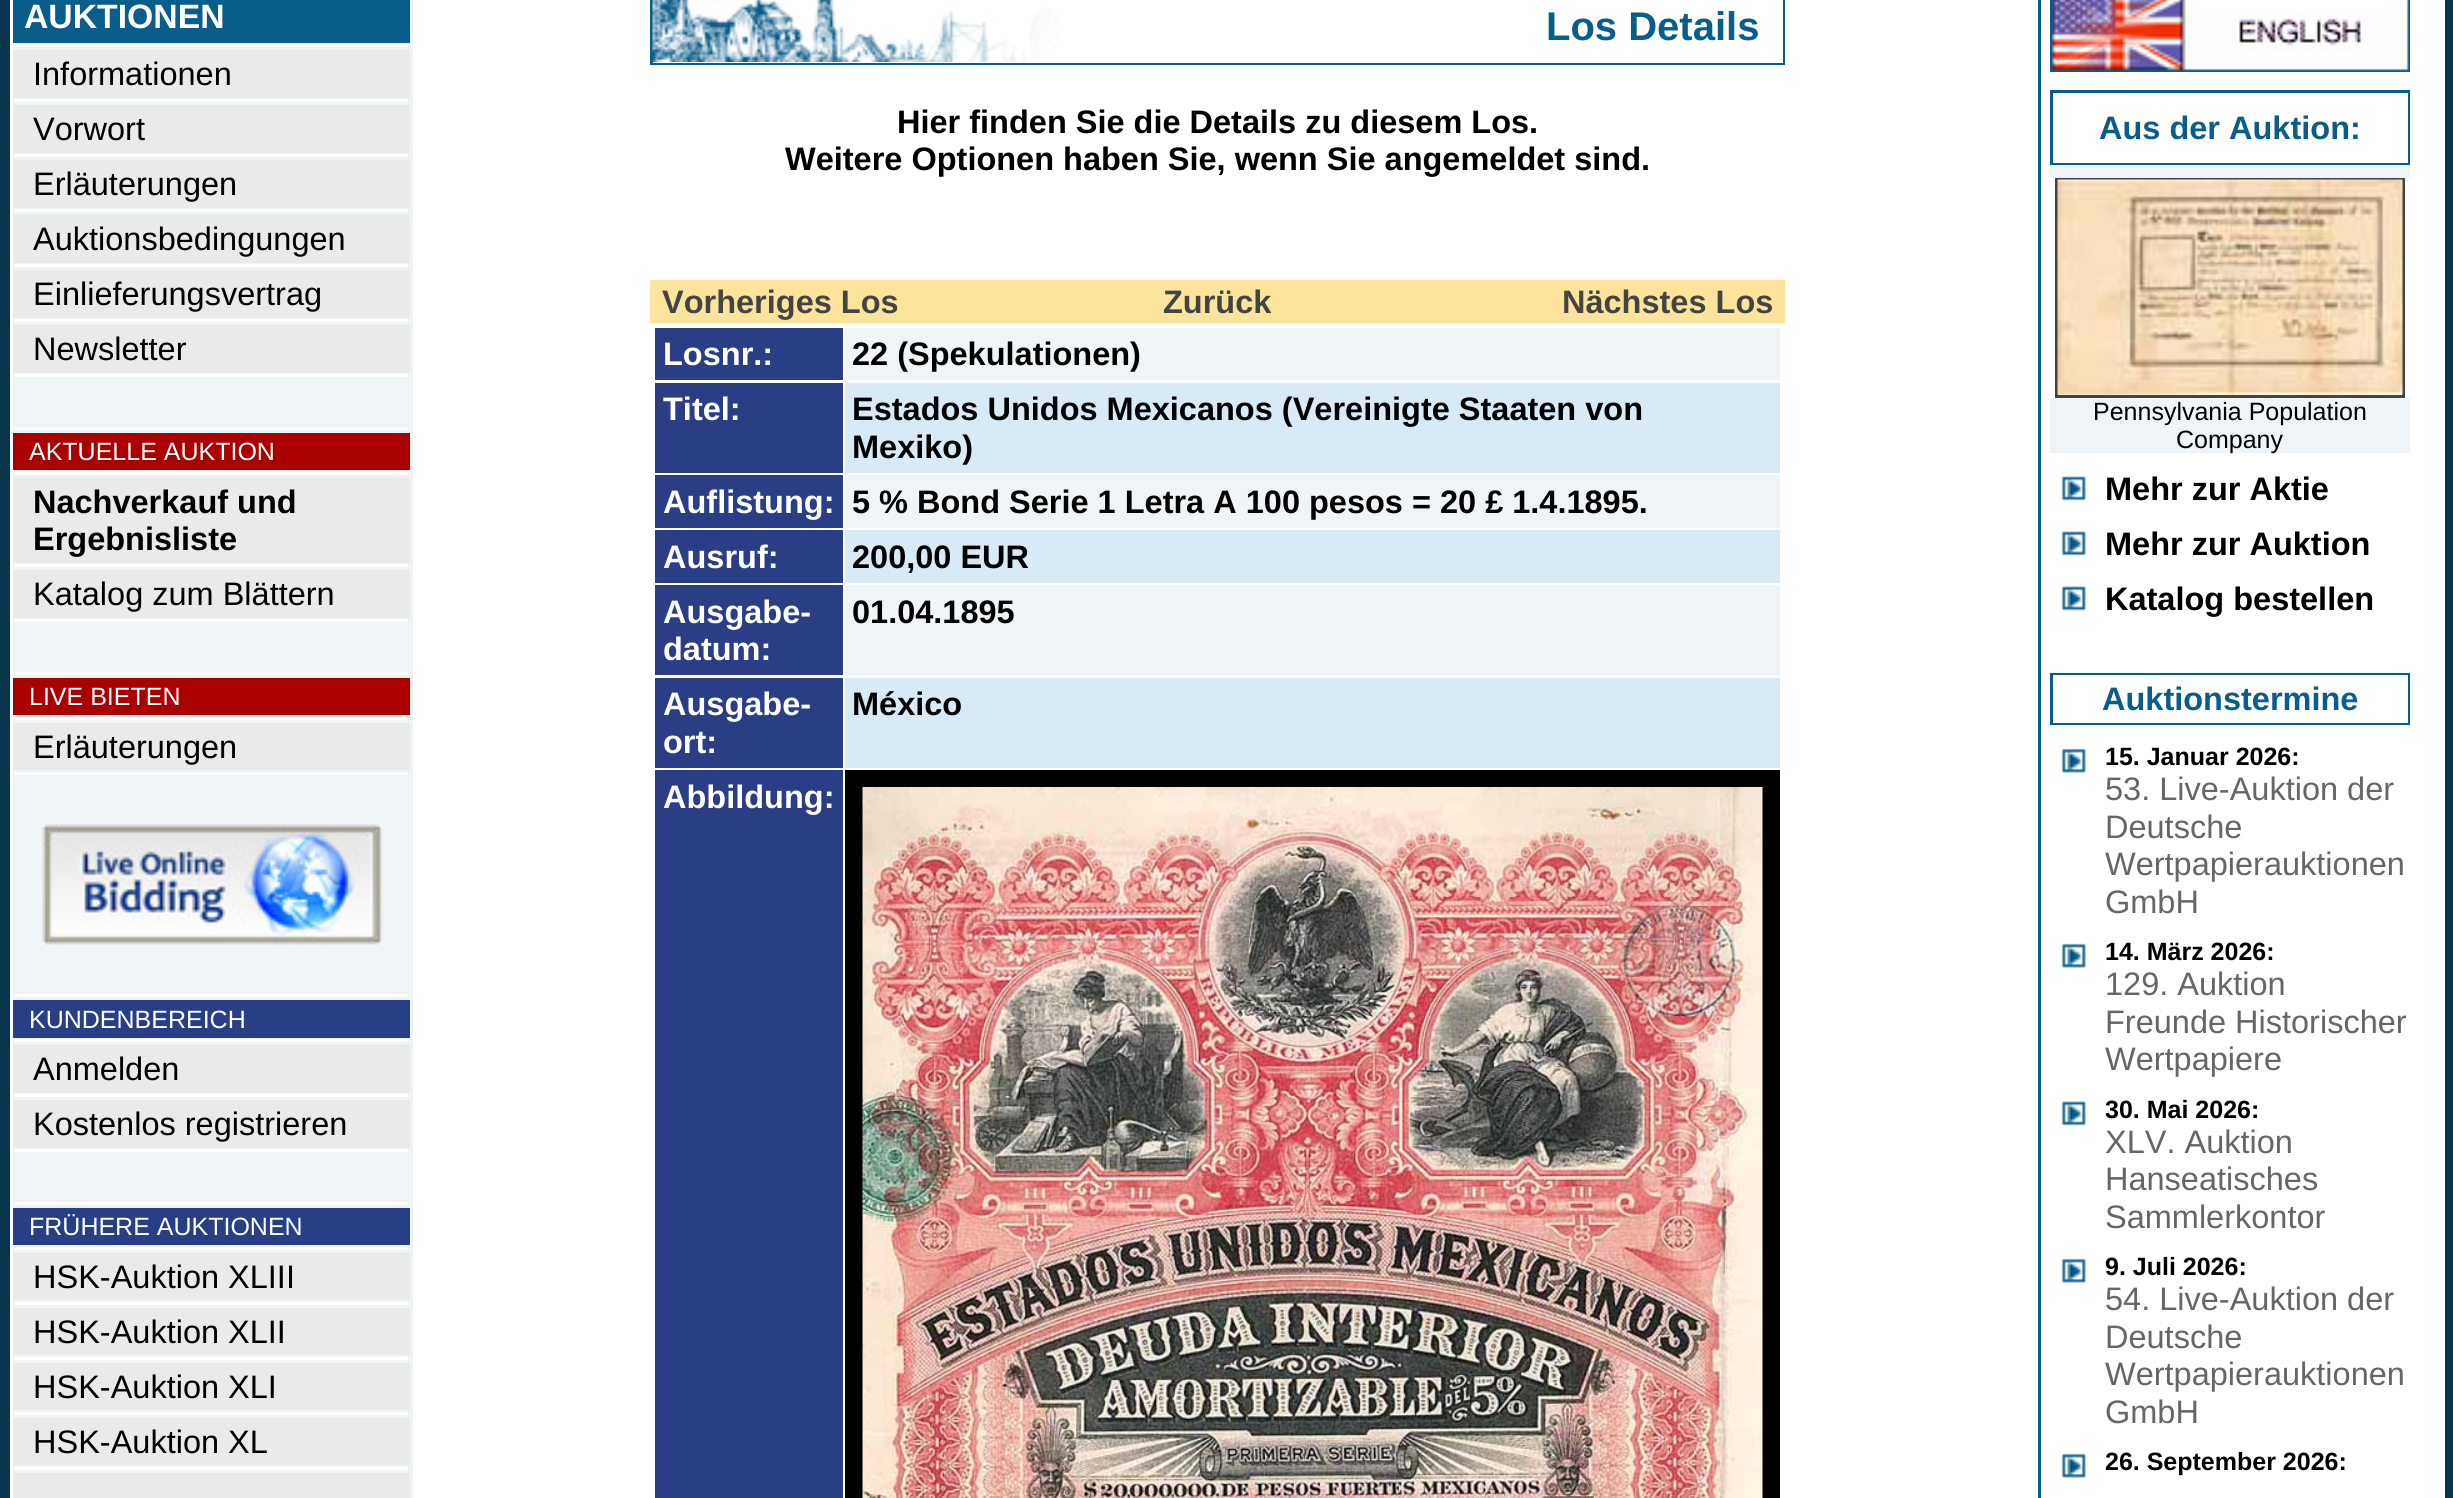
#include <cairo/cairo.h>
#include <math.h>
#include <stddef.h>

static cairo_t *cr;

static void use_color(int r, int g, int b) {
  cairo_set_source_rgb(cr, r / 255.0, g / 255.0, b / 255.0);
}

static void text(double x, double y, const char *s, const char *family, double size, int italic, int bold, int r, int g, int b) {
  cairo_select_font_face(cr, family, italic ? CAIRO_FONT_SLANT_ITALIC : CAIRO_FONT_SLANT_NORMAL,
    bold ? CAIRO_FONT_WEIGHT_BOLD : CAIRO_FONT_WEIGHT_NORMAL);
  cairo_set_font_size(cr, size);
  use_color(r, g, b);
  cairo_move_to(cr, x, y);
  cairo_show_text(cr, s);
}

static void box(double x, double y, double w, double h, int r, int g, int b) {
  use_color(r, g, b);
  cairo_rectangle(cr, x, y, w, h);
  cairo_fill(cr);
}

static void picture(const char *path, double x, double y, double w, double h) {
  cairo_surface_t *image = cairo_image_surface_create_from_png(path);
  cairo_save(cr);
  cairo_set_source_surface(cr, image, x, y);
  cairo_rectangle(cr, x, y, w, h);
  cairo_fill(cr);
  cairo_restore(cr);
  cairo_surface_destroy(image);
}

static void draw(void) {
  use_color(8, 52, 76);
  cairo_paint(cr);
  box(10, 0, 2435, 1498, 255, 255, 255);
  box(13, 0, 400, 1498, 239, 244, 247);
  box(13, 0, 397, 43, 8, 93, 138);
  box(15, 44, 393, 3, 255, 255, 255);
  box(13, 50, 397, 48, 234, 234, 234);
  box(15, 99, 393, 3, 255, 255, 255);
  box(13, 105, 397, 48, 234, 234, 234);
  box(15, 154, 393, 3, 255, 255, 255);
  box(13, 160, 397, 48, 234, 234, 234);
  box(15, 209, 393, 3, 255, 255, 255);
  box(13, 215, 397, 48, 234, 234, 234);
  box(15, 264, 393, 3, 255, 255, 255);
  box(13, 270, 397, 48, 234, 234, 234);
  box(15, 319, 393, 3, 255, 255, 255);
  box(13, 325, 397, 48, 234, 234, 234);
  box(15, 374, 393, 3, 255, 255, 255);
  box(15, 427, 393, 3, 255, 255, 255);
  box(13, 433, 397, 37, 170, 0, 0);
  box(15, 472, 393, 3, 255, 255, 255);
  box(13, 478, 397, 85, 234, 234, 234);
  box(15, 564, 393, 3, 255, 255, 255);
  box(13, 570, 397, 48, 234, 234, 234);
  box(15, 619, 393, 3, 255, 255, 255);
  box(15, 672, 393, 3, 255, 255, 255);
  box(13, 678, 397, 37, 170, 0, 0);
  box(15, 717, 393, 3, 255, 255, 255);
  box(13, 723, 397, 47, 234, 234, 234);
  box(15, 772, 393, 3, 255, 255, 255);
  picture("img_01.png", 42, 824, 341, 121);
  box(15, 994, 393, 3, 255, 255, 255);
  box(13, 1000, 397, 38, 40, 63, 134);
  box(15, 1039, 393, 3, 255, 255, 255);
  box(13, 1045, 397, 48, 234, 234, 234);
  box(15, 1094, 393, 3, 255, 255, 255);
  box(13, 1100, 397, 48, 234, 234, 234);
  box(15, 1149, 393, 3, 255, 255, 255);
  box(15, 1202, 393, 3, 255, 255, 255);
  box(13, 1208, 397, 37, 40, 63, 134);
  box(15, 1247, 393, 3, 255, 255, 255);
  box(13, 1253, 397, 47, 234, 234, 234);
  box(15, 1302, 393, 3, 255, 255, 255);
  box(13, 1308, 397, 47, 234, 234, 234);
  box(15, 1357, 393, 3, 255, 255, 255);
  box(13, 1363, 397, 47, 234, 234, 234);
  box(15, 1412, 393, 3, 255, 255, 255);
  box(13, 1418, 397, 47, 234, 234, 234);
  box(15, 1467, 393, 3, 255, 255, 255);
  box(13, 1473, 397, 25, 234, 234, 234);
  box(650, 0, 1135, 65, 8, 93, 138);
  box(653, 0, 1130, 63, 255, 255, 255);
  picture("img_02.png", 652, 0, 408, 62);
  box(650, 280, 1135, 43, 252, 228, 156);
  box(655, 328, 188, 52, 41, 62, 132);
  box(845, 328, 935, 52, 239, 244, 247);
  box(655, 383, 188, 90, 41, 62, 132);
  box(845, 383, 935, 90, 215, 234, 245);
  box(655, 475, 188, 53, 41, 62, 132);
  box(845, 475, 935, 53, 239, 244, 247);
  box(655, 530, 188, 53, 41, 62, 132);
  box(845, 530, 935, 53, 215, 234, 245);
  box(655, 585, 188, 90, 41, 62, 132);
  box(845, 585, 935, 90, 239, 244, 247);
  box(655, 678, 188, 90, 41, 62, 132);
  box(845, 678, 935, 90, 215, 234, 245);
  box(655, 770, 188, 728, 41, 62, 132);
  box(845, 770, 935, 728, 0, 0, 0);
  picture("img_03.png", 862, 787, 901, 711);
  box(2038, 0, 3, 1498, 8, 93, 138);
  picture("img_04.png", 2050, 0, 360, 72);
  box(2050, 90, 360, 75, 8, 93, 138);
  box(2053, 93, 355, 70, 255, 255, 255);
  box(2050, 165, 360, 13, 238, 244, 247);
  cairo_rectangle(cr, 2056.5, 179.5, 347, 217);
  use_color(68, 68, 68);
  cairo_set_line_width(cr, 3);
  cairo_stroke(cr);
  picture("img_05.png", 2057, 179, 346, 216);
  box(2050, 398, 360, 55, 238, 244, 247);
  picture("img_06.png", 2061, 476, 25, 25);
  picture("img_06.png", 2061, 531, 25, 25);
  picture("img_06.png", 2061, 586, 25, 25);
  box(2050, 673, 360, 52, 8, 93, 138);
  box(2053, 675, 355, 48, 255, 255, 255);
  picture("img_07.png", 2061, 748, 25, 25);
  picture("img_07.png", 2061, 943, 25, 25);
  picture("img_06.png", 2061, 1101, 25, 25);
  picture("img_07.png", 2061, 1258, 25, 25);
  picture("img_07.png", 2061, 1453, 25, 25);
  text(24, 28, "AUKTIONEN", "Liberation Sans", 33.75, 0, 1, 255, 255, 255);
  text(33, 85, "Informationen", "Liberation Sans", 32.5, 0, 0, 0, 0, 0);
  text(33, 140, "Vorwort", "Liberation Sans", 32.5, 0, 0, 0, 0, 0);
  text(33, 195, "Erläuterungen", "Liberation Sans", 32.5, 0, 0, 0, 0, 0);
  text(33, 250, "Auktionsbedingungen", "Liberation Sans", 32.5, 0, 0, 0, 0, 0);
  text(33, 305, "Einlieferungsvertrag", "Liberation Sans", 32.5, 0, 0, 0, 0, 0);
  text(33, 360, "Newsletter", "Liberation Sans", 32.5, 0, 0, 0, 0, 0);
  text(29, 460, "AKTUELLE AUKTION", "Liberation Sans", 25, 0, 0, 255, 255, 255);
  text(33, 513, "Nachverkauf und", "Liberation Sans", 32.5, 0, 1, 0, 0, 0);
  text(33, 550, "Ergebnisliste", "Liberation Sans", 32.5, 0, 1, 0, 0, 0);
  text(33, 605, "Katalog zum Blättern", "Liberation Sans", 32.5, 0, 0, 0, 0, 0);
  text(29, 705, "LIVE BIETEN", "Liberation Sans", 25, 0, 0, 255, 255, 255);
  text(33, 758, "Erläuterungen", "Liberation Sans", 32.5, 0, 0, 0, 0, 0);
  text(29, 1028, "KUNDENBEREICH", "Liberation Sans", 25, 0, 0, 255, 255, 255);
  text(33, 1080, "Anmelden", "Liberation Sans", 32.5, 0, 0, 0, 0, 0);
  text(33, 1135, "Kostenlos registrieren", "Liberation Sans", 32.5, 0, 0, 0, 0, 0);
  text(29, 1235, "FRÜHERE AUKTIONEN", "Liberation Sans", 25, 0, 0, 255, 255, 255);
  text(33, 1288, "HSK-Auktion XLIII", "Liberation Sans", 32.5, 0, 0, 0, 0, 0);
  text(33, 1343, "HSK-Auktion XLII", "Liberation Sans", 32.5, 0, 0, 0, 0, 0);
  text(33, 1398, "HSK-Auktion XLI", "Liberation Sans", 32.5, 0, 0, 0, 0, 0);
  text(33, 1453, "HSK-Auktion XL", "Liberation Sans", 32.5, 0, 0, 0, 0, 0);
  text(1546, 40, "Los Details", "Liberation Sans", 40, 0, 1, 8, 93, 138);
  text(897, 133, "Hier finden Sie die Details zu diesem Los.", "Liberation Sans", 32.5, 0, 1, 0, 0, 0);
  text(785, 170, "Weitere Optionen haben Sie, wenn Sie angemeldet sind.", "Liberation Sans", 32.5, 0, 1, 0, 0, 0);
  text(662, 313, "Vorheriges Los", "Liberation Sans", 32.5, 0, 1, 68, 68, 68);
  text(1163, 313, "Zurück", "Liberation Sans", 32.5, 0, 1, 68, 68, 68);
  text(1562, 313, "Nächstes Los", "Liberation Sans", 32.5, 0, 1, 68, 68, 68);
  text(663, 365, "Losnr.:", "Liberation Sans", 32.5, 0, 1, 255, 255, 255);
  text(852, 365, "22 (Spekulationen)", "Liberation Sans", 32.5, 0, 1, 0, 0, 0);
  text(663, 420, "Titel:", "Liberation Sans", 32.5, 0, 1, 255, 255, 255);
  text(852, 420, "Estados Unidos Mexicanos (Vereinigte Staaten von", "Liberation Sans", 32.5, 0, 1, 0, 0, 0);
  text(852, 458, "Mexiko)", "Liberation Sans", 32.5, 0, 1, 0, 0, 0);
  text(663, 513, "Auflistung:", "Liberation Sans", 32.5, 0, 1, 255, 255, 255);
  text(852, 513, "5 % Bond Serie 1 Letra A 100 pesos = 20 £ 1.4.1895.", "Liberation Sans", 32.5, 0, 1, 0, 0, 0);
  text(663, 568, "Ausruf:", "Liberation Sans", 32.5, 0, 1, 255, 255, 255);
  text(852, 568, "200,00 EUR", "Liberation Sans", 32.5, 0, 1, 0, 0, 0);
  text(663, 623, "Ausgabe-", "Liberation Sans", 32.5, 0, 1, 255, 255, 255);
  text(663, 660, "datum:", "Liberation Sans", 32.5, 0, 1, 255, 255, 255);
  text(852, 623, "01.04.1895", "Liberation Sans", 32.5, 0, 1, 0, 0, 0);
  text(663, 715, "Ausgabe-", "Liberation Sans", 32.5, 0, 1, 255, 255, 255);
  text(663, 753, "ort:", "Liberation Sans", 32.5, 0, 1, 255, 255, 255);
  text(852, 715, "México", "Liberation Sans", 32.5, 0, 1, 0, 0, 0);
  text(663, 808, "Abbildung:", "Liberation Sans", 32.5, 0, 1, 255, 255, 255);
  text(2099, 139, "Aus der Auktion:", "Liberation Sans", 32.5, 0, 1, 8, 93, 138);
  text(2093, 420, "Pennsylvania Population", "Liberation Sans", 25, 0, 0, 0, 0, 0);
  text(2176, 448, "Company", "Liberation Sans", 25, 0, 0, 0, 0, 0);
  text(2105, 500, "Mehr zur Aktie", "Liberation Sans", 32.5, 0, 1, 0, 0, 0);
  text(2105, 555, "Mehr zur Auktion", "Liberation Sans", 32.5, 0, 1, 0, 0, 0);
  text(2105, 610, "Katalog bestellen", "Liberation Sans", 32.5, 0, 1, 0, 0, 0);
  text(2102, 710, "Auktionstermine", "Liberation Sans", 32.5, 0, 1, 8, 93, 138);
  text(2105, 765, "15. Januar 2026:", "Liberation Sans", 25, 0, 1, 0, 0, 0);
  text(2105, 800, "53. Live-Auktion der", "Liberation Sans", 32.5, 0, 0, 102, 102, 102);
  text(2105, 838, "Deutsche", "Liberation Sans", 32.5, 0, 0, 102, 102, 102);
  text(2105, 875, "Wertpapierauktionen", "Liberation Sans", 32.5, 0, 0, 102, 102, 102);
  text(2105, 913, "GmbH", "Liberation Sans", 32.5, 0, 0, 102, 102, 102);
  text(2105, 960, "14. März 2026:", "Liberation Sans", 25, 0, 1, 0, 0, 0);
  text(2105, 995, "129. Auktion", "Liberation Sans", 32.5, 0, 0, 102, 102, 102);
  text(2105, 1033, "Freunde Historischer", "Liberation Sans", 32.5, 0, 0, 102, 102, 102);
  text(2105, 1070, "Wertpapiere", "Liberation Sans", 32.5, 0, 0, 102, 102, 102);
  text(2105, 1118, "30. Mai 2026:", "Liberation Sans", 25, 0, 1, 0, 0, 0);
  text(2105, 1153, "XLV. Auktion", "Liberation Sans", 32.5, 0, 0, 102, 102, 102);
  text(2105, 1190, "Hanseatisches", "Liberation Sans", 32.5, 0, 0, 102, 102, 102);
  text(2105, 1228, "Sammlerkontor", "Liberation Sans", 32.5, 0, 0, 102, 102, 102);
  text(2105, 1275, "9. Juli 2026:", "Liberation Sans", 25, 0, 1, 0, 0, 0);
  text(2105, 1310, "54. Live-Auktion der", "Liberation Sans", 32.5, 0, 0, 102, 102, 102);
  text(2105, 1348, "Deutsche", "Liberation Sans", 32.5, 0, 0, 102, 102, 102);
  text(2105, 1385, "Wertpapierauktionen", "Liberation Sans", 32.5, 0, 0, 102, 102, 102);
  text(2105, 1423, "GmbH", "Liberation Sans", 32.5, 0, 0, 102, 102, 102);
  text(2105, 1470, "26. September 2026:", "Liberation Sans", 25, 0, 1, 0, 0, 0);
}

int main(void) {
  cairo_surface_t *surface = cairo_image_surface_create(CAIRO_FORMAT_RGB24, 2453, 1498);
  cr = cairo_create(surface);
  cairo_font_options_t *options = cairo_font_options_create();
  cairo_font_options_set_hint_metrics(options, CAIRO_HINT_METRICS_OFF);
  cairo_font_options_set_hint_style(options, CAIRO_HINT_STYLE_NONE);
  cairo_set_font_options(cr, options);
  cairo_set_miter_limit(cr, 4);
  draw();
  cairo_surface_write_to_png(surface, "out.png");
  cairo_font_options_destroy(options);
  cairo_destroy(cr);
  cairo_surface_destroy(surface);
  return 0;
}
